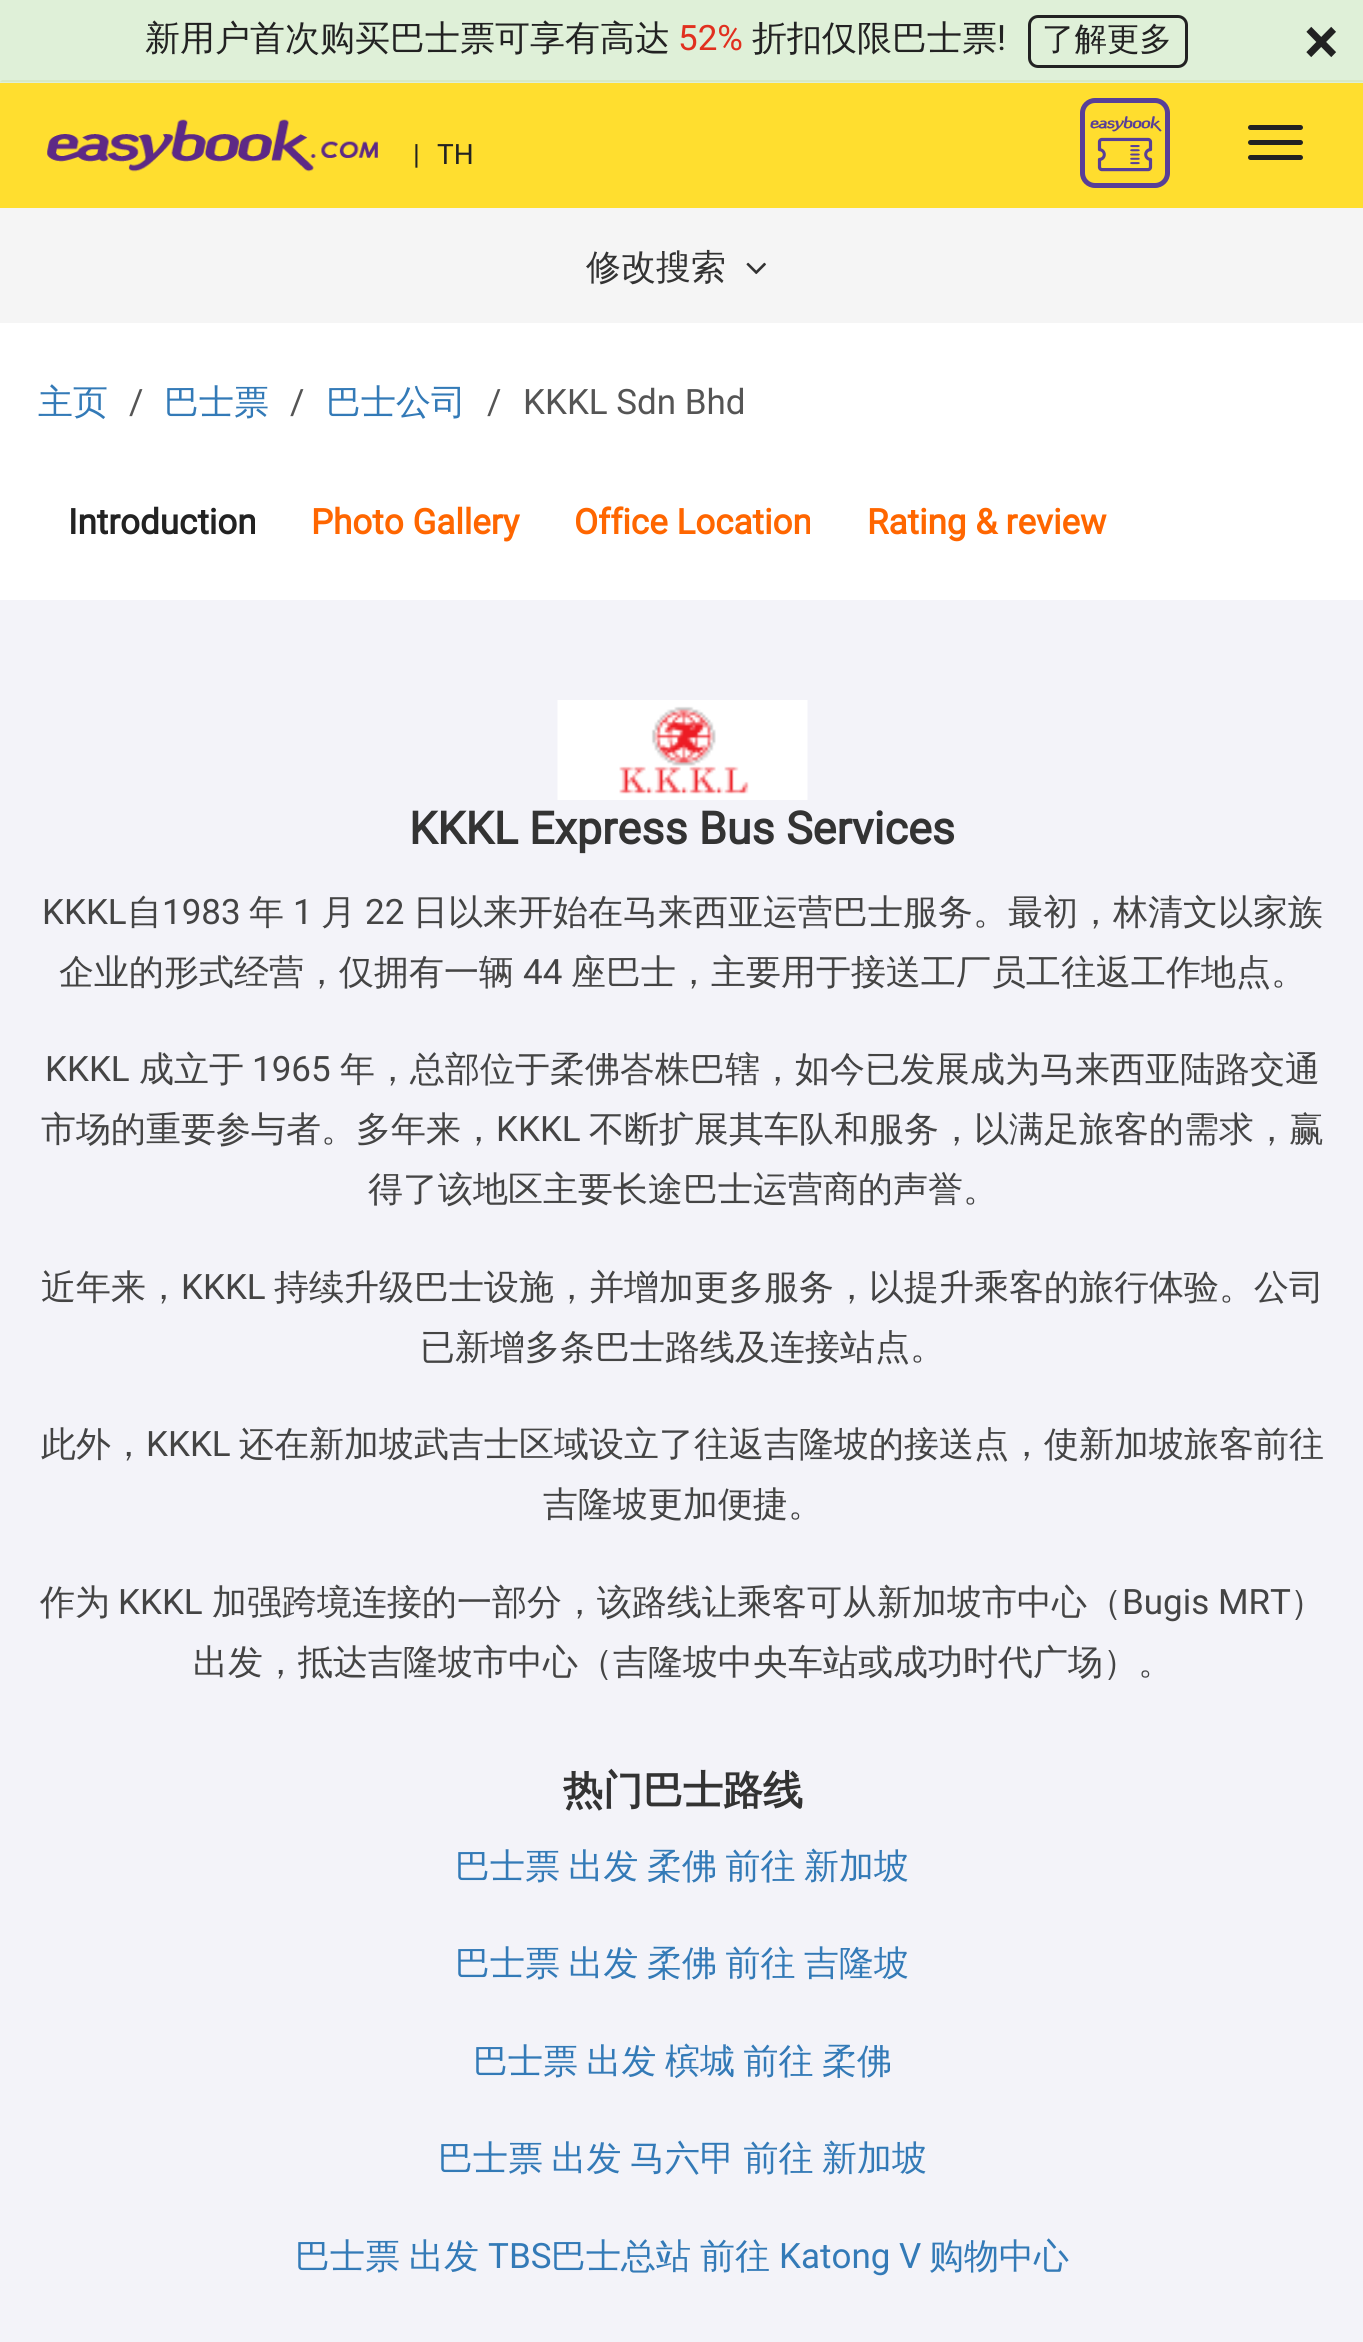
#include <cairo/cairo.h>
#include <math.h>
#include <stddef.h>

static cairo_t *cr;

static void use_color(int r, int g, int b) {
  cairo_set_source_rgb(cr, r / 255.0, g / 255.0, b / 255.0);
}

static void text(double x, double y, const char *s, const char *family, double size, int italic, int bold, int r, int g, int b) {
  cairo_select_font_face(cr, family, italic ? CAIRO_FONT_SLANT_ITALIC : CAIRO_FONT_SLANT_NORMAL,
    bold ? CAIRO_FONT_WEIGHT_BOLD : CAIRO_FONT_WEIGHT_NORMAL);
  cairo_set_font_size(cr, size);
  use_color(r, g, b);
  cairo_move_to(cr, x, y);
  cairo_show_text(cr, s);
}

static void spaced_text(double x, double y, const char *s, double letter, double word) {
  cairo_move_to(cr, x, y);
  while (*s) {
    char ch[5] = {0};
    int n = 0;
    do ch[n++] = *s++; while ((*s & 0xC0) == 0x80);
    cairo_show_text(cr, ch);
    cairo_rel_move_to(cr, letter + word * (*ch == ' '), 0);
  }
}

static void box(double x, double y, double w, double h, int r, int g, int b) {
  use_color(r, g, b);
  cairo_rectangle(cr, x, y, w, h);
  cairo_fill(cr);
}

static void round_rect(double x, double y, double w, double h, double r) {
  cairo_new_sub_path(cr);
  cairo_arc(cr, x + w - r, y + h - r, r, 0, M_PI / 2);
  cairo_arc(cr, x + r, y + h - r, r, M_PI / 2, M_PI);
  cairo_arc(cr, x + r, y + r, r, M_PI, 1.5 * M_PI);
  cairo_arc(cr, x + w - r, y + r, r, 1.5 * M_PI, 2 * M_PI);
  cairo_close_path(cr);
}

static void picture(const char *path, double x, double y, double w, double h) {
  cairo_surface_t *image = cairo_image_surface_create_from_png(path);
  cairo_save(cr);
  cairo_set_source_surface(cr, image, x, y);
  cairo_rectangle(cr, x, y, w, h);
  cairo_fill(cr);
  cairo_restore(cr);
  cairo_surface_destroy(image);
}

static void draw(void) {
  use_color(255, 255, 255);
  cairo_paint(cr);
  box(0, 0, 1363, 83, 223, 240, 216);
  use_color(214, 233, 198);
  cairo_new_path(cr);
  cairo_move_to(cr, 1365, 82);
  cairo_line_to(cr, 0, 82);
  cairo_line_to(cr, 2, 80);
  cairo_line_to(cr, 1362, 80);
  cairo_close_path(cr);
  cairo_fill(cr);
  round_rect(1029.5, 16.5, 157, 50, 8.5);
  use_color(34, 34, 34);
  cairo_set_line_width(cr, 3);
  cairo_stroke(cr);
  box(0, 83, 1363, 125, 255, 222, 47);
  picture("img_01.png", 47, 119, 331, 53);
  picture("img_02.png", 1080, 98, 90, 90);
  use_color(34, 34, 34);
  round_rect(1248, 125, 55, 5, 2.5);
  cairo_fill(cr);
  round_rect(1248, 140, 55, 5, 2.5);
  cairo_fill(cr);
  round_rect(1248, 155, 55, 5, 2.5);
  cairo_fill(cr);
  box(0, 208, 1363, 115, 245, 245, 245);
  picture("img_03.png", 746, 262, 20, 13);
  box(0, 600, 1363, 1742, 243, 243, 249);
  picture("img_04.png", 557, 700, 251, 100);
  text(145, 50, "新用户首次购买巴士票可享有高达", "WenQuanYi Zen Hei Medium", 35, 0, 0, 34, 34, 34);
  text(678, 50, "52%", "Roboto", 35, 0, 0, 225, 48, 31);
  text(752, 50, "折扣仅限巴士票", "WenQuanYi Zen Hei Medium", 35, 0, 0, 34, 34, 34);
  text(997, 50, "!", "Roboto", 35, 0, 0, 34, 34, 34);
  text(1042, 50, "了解更多", "WenQuanYi Zen Hei Medium", 32.5, 0, 0, 34, 34, 34);
  text(1304, 63, "×", "Roboto", 62, 0, 1, 34, 34, 34);
  text(413, 164, "|", "Roboto", 28, 0, 0, 34, 34, 34);
  text(437, 164, "TH", "Roboto", 28, 0, 0, 34, 34, 34);
  text(586, 279, "修改搜索", "WenQuanYi Zen Hei Medium", 35, 0, 0, 51, 51, 51);
  text(38, 414, "主页", "WenQuanYi Zen Hei Medium", 35, 0, 0, 51, 122, 183);
  text(129, 414, "/", "Roboto", 35, 0, 0, 85, 85, 85);
  text(164, 414, "巴士票", "WenQuanYi Zen Hei Medium", 35, 0, 0, 51, 122, 183);
  text(290, 414, "/", "Roboto", 35, 0, 0, 85, 85, 85);
  text(326, 414, "巴士公司", "WenQuanYi Zen Hei Medium", 35, 0, 0, 51, 122, 183);
  text(487, 414, "/", "Roboto", 35, 0, 0, 85, 85, 85);
  text(523, 414, "KKKL Sdn Bhd", "Roboto", 35, 0, 0, 85, 85, 85);
  text(68, 534, "Introduction", "Roboto", 35, 0, 1, 34, 34, 34);
  text(311, 534, "Photo Gallery", "Roboto", 35, 0, 1, 255, 102, 0);
  text(574, 534, "Office Location", "Roboto", 35, 0, 1, 255, 102, 0);
  text(867, 534, "Rating & review", "Roboto", 35, 0, 1, 255, 102, 0);
  text(409, 844, "KKKL Express Bus Services", "Roboto", 45, 0, 1, 51, 51, 51);
  text(42, 924, "KKKL", "Roboto", 35, 0, 0, 68, 68, 68);
  text(127, 924, "自", "WenQuanYi Zen Hei Medium", 35, 0, 0, 68, 68, 68);
  text(162, 924, "1983", "Roboto", 35, 0, 0, 68, 68, 68);
  text(249, 924, "年", "WenQuanYi Zen Hei Medium", 35, 0, 0, 68, 68, 68);
  text(293, 924, "1", "Roboto", 35, 0, 0, 68, 68, 68);
  text(321, 924, "月", "WenQuanYi Zen Hei Medium", 35, 0, 0, 68, 68, 68);
  text(365, 924, "22", "Roboto", 35, 0, 0, 68, 68, 68);
  text(413, 924, "日以来开始在马来西亚运营巴士服务。最初，林清文以家族", "WenQuanYi Zen Hei Medium", 35, 0, 0, 68, 68, 68);
  text(59, 984, "企业的形式经营，仅拥有一辆", "WenQuanYi Zen Hei Medium", 35, 0, 0, 68, 68, 68);
  text(523, 984, "44", "Roboto", 35, 0, 0, 68, 68, 68);
  text(571, 984, "座巴士，主要用于接送工厂员工往返工作地点。", "WenQuanYi Zen Hei Medium", 35, 0, 0, 68, 68, 68);
  text(45, 1081, "KKKL", "Roboto", 35, 0, 0, 68, 68, 68);
  text(139, 1081, "成立于", "WenQuanYi Zen Hei Medium", 35, 0, 0, 68, 68, 68);
  text(252, 1081, "1965", "Roboto", 35, 0, 0, 68, 68, 68);
  text(340, 1081, "年，总部位于柔佛峇株巴辖，如今已发展成为马来西亚陆路交通", "WenQuanYi Zen Hei Medium", 35, 0, 0, 68, 68, 68);
  text(41, 1141, "市场的重要参与者。多年来，", "WenQuanYi Zen Hei Medium", 35, 0, 0, 68, 68, 68);
  text(496, 1141, "KKKL", "Roboto", 35, 0, 0, 68, 68, 68);
  text(589, 1141, "不断扩展其车队和服务，以满足旅客的需求，赢", "WenQuanYi Zen Hei Medium", 35, 0, 0, 68, 68, 68);
  text(368, 1201, "得了该地区主要长途巴士运营商的声誉。", "WenQuanYi Zen Hei Medium", 35, 0, 0, 68, 68, 68);
  text(41, 1299, "近年来，", "WenQuanYi Zen Hei Medium", 35, 0, 0, 68, 68, 68);
  text(181, 1299, "KKKL", "Roboto", 35, 0, 0, 68, 68, 68);
  text(274, 1299, "持续升级巴士设施，并增加更多服务，以提升乘客的旅行体验。公司", "WenQuanYi Zen Hei Medium", 35, 0, 0, 68, 68, 68);
  text(420, 1359, "已新增多条巴士路线及连接站点。", "WenQuanYi Zen Hei Medium", 35, 0, 0, 68, 68, 68);
  text(41, 1456, "此外，", "WenQuanYi Zen Hei Medium", 35, 0, 0, 68, 68, 68);
  text(146, 1456, "KKKL", "Roboto", 35, 0, 0, 68, 68, 68);
  text(239, 1456, "还在新加坡武吉士区域设立了往返吉隆坡的接送点，使新加坡旅客前往", "WenQuanYi Zen Hei Medium", 35, 0, 0, 68, 68, 68);
  text(543, 1516, "吉隆坡更加便捷。", "WenQuanYi Zen Hei Medium", 35, 0, 0, 68, 68, 68);
  text(40, 1614, "作为", "WenQuanYi Zen Hei Medium", 35, 0, 0, 68, 68, 68);
  text(118, 1614, "KKKL", "Roboto", 35, 0, 0, 68, 68, 68);
  text(212, 1614, "加强跨境连接的一部分，该路线让乘客可从新加坡市中心（", "WenQuanYi Zen Hei Medium", 35, 0, 0, 68, 68, 68);
  text(1122, 1614, "Bugis MRT", "Roboto", 35, 0, 0, 68, 68, 68);
  text(1290, 1614, "）", "WenQuanYi Zen Hei Medium", 35, 0, 0, 68, 68, 68);
  text(193, 1674, "出发，抵达吉隆坡市中心（吉隆坡中央车站或成功时代广场）。", "WenQuanYi Zen Hei Medium", 35, 0, 0, 68, 68, 68);
  text(563, 1804, "热门巴士路线", "WenQuanYi Zen Hei", 40, 0, 1, 51, 51, 51);
  cairo_select_font_face(cr, "WenQuanYi Zen Hei Medium", CAIRO_FONT_SLANT_NORMAL, CAIRO_FONT_WEIGHT_NORMAL);
  cairo_set_font_size(cr, 35);
  use_color(51, 122, 183);
  spaced_text(455, 1878, "巴士票 出发 柔佛 前往 新加坡", 0, -2);
  spaced_text(455, 1975, "巴士票 出发 柔佛 前往 吉隆坡", 0, -2);
  spaced_text(473, 2073, "巴士票 出发 槟城 前往 柔佛", 0, -2);
  spaced_text(438, 2170, "巴士票 出发 马六甲 前往 新加坡", 0, -2);
  text(295, 2268, "巴士票", "WenQuanYi Zen Hei Medium", 35, 0, 0, 51, 122, 183);
  text(409, 2268, "出发", "WenQuanYi Zen Hei Medium", 35, 0, 0, 51, 122, 183);
  text(488, 2268, "TBS", "Roboto", 35, 0, 0, 51, 122, 183);
  text(551, 2268, "巴士总站", "WenQuanYi Zen Hei Medium", 35, 0, 0, 51, 122, 183);
  text(700, 2268, "前往", "WenQuanYi Zen Hei Medium", 35, 0, 0, 51, 122, 183);
  text(779, 2268, "Katong V", "Roboto", 35, 0, 0, 51, 122, 183);
  text(929, 2268, "购物中心", "WenQuanYi Zen Hei Medium", 35, 0, 0, 51, 122, 183);
}

int main(void) {
  cairo_surface_t *surface = cairo_image_surface_create(CAIRO_FORMAT_RGB24, 1363, 2342);
  cr = cairo_create(surface);
  cairo_font_options_t *options = cairo_font_options_create();
  cairo_font_options_set_hint_metrics(options, CAIRO_HINT_METRICS_OFF);
  cairo_font_options_set_hint_style(options, CAIRO_HINT_STYLE_NONE);
  cairo_set_font_options(cr, options);
  cairo_set_miter_limit(cr, 4);
  draw();
  cairo_surface_write_to_png(surface, "out.png");
  cairo_font_options_destroy(options);
  cairo_destroy(cr);
  cairo_surface_destroy(surface);
  return 0;
}
